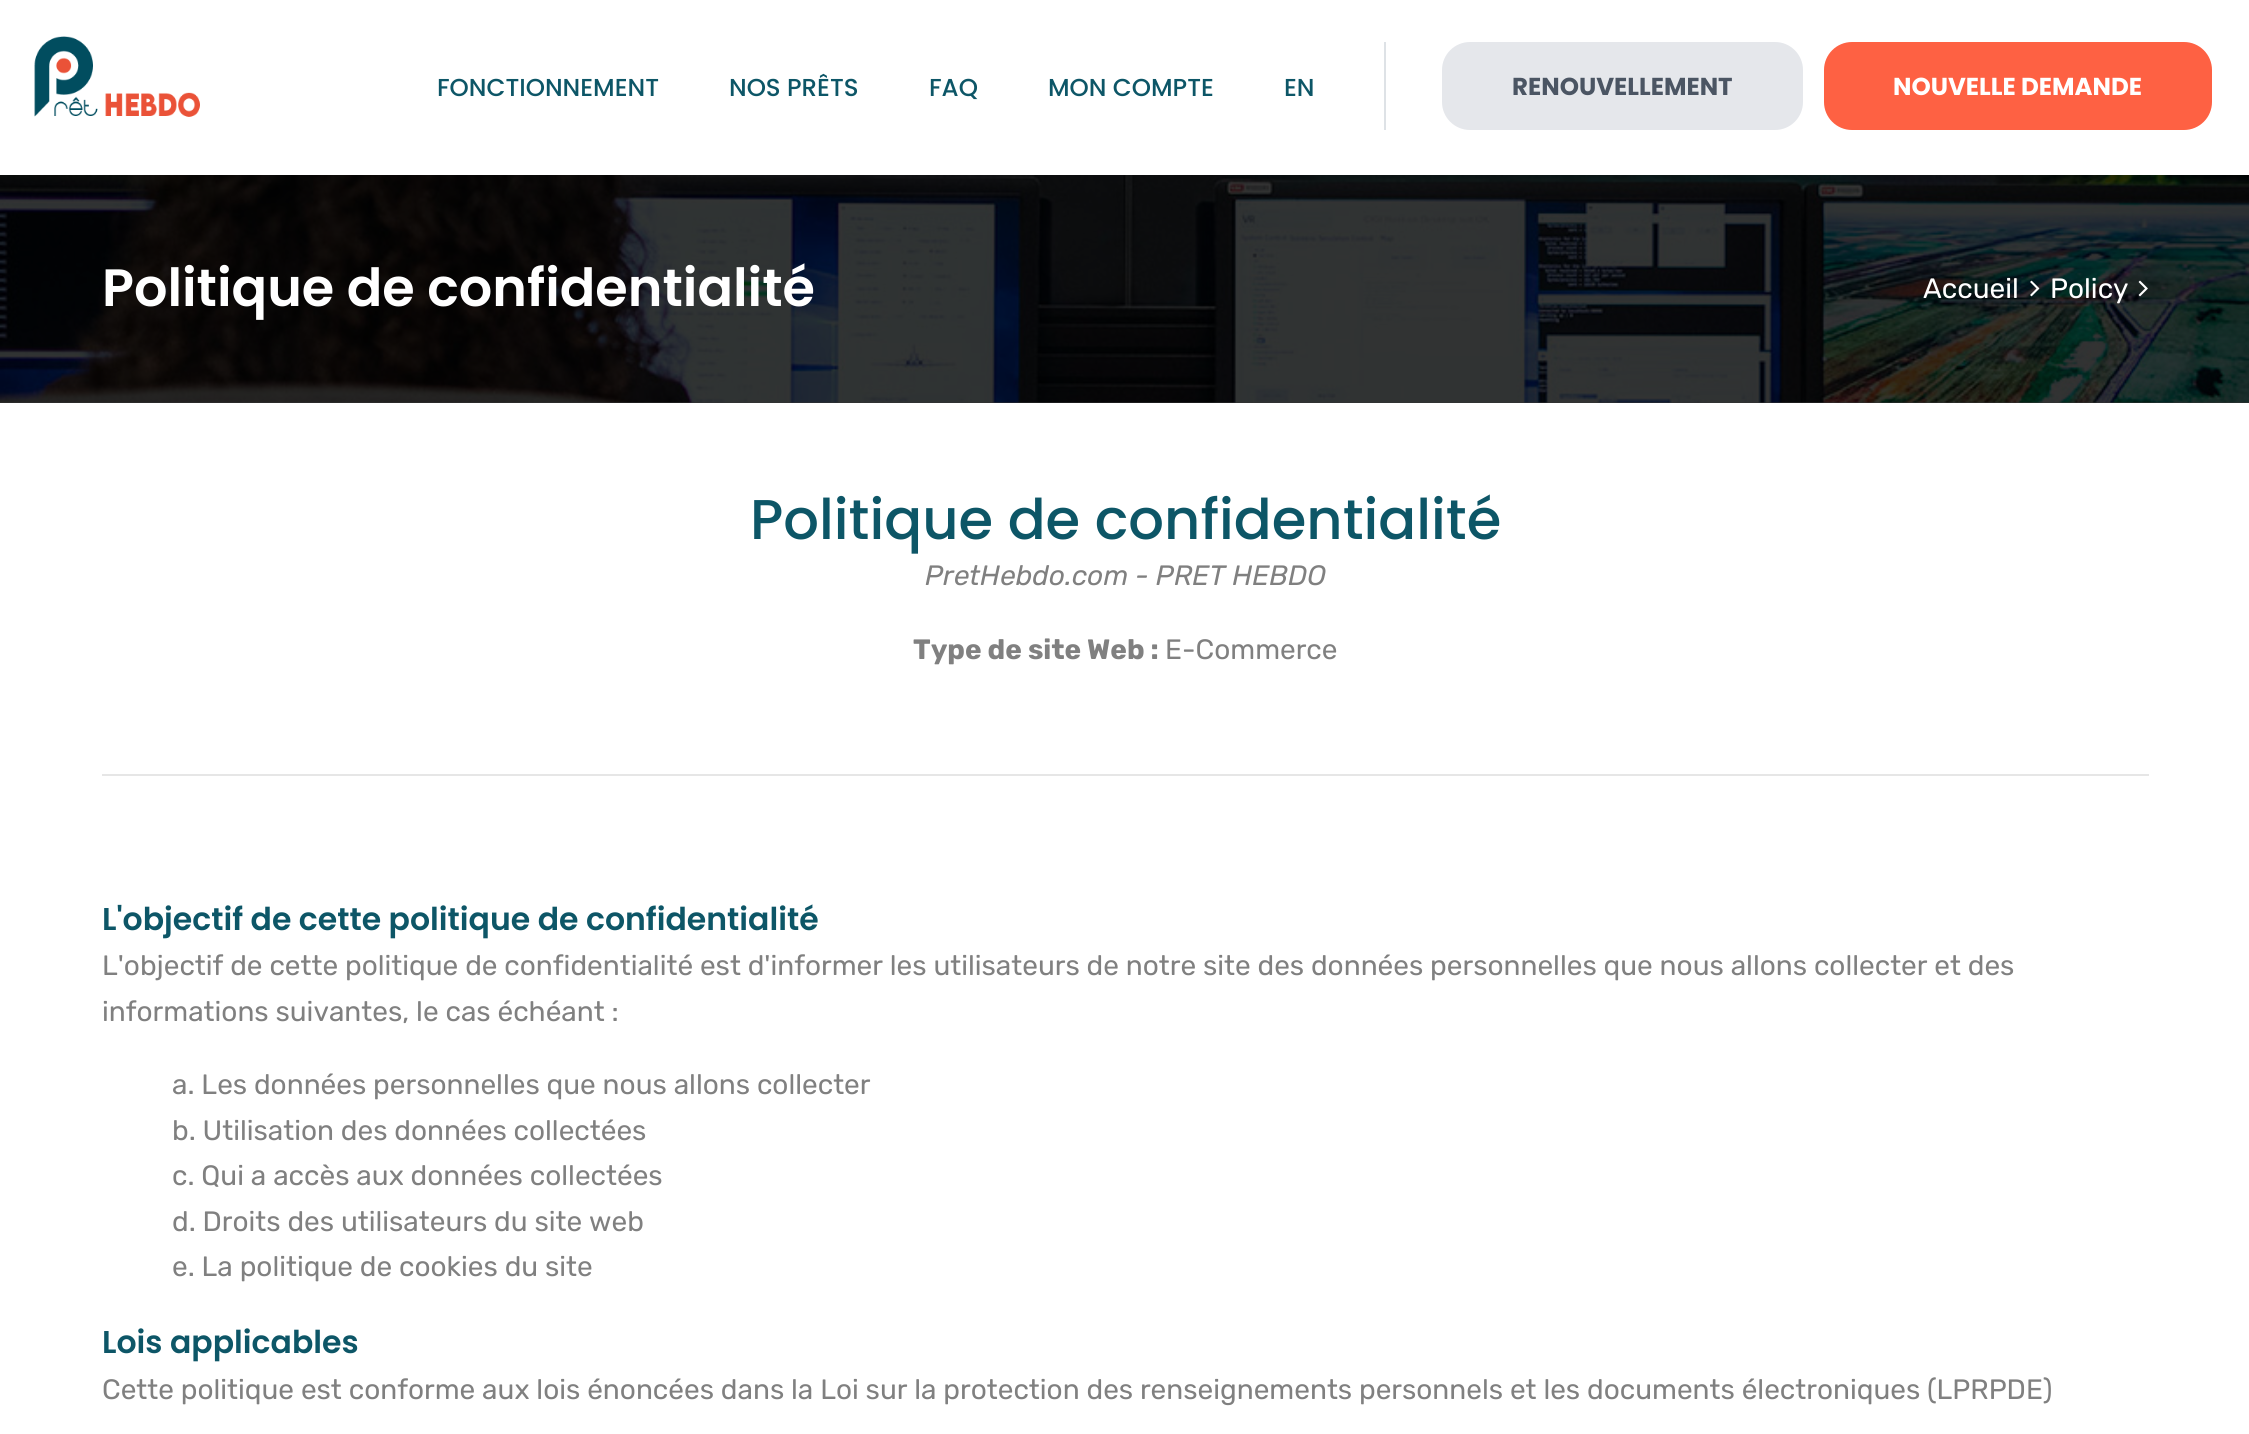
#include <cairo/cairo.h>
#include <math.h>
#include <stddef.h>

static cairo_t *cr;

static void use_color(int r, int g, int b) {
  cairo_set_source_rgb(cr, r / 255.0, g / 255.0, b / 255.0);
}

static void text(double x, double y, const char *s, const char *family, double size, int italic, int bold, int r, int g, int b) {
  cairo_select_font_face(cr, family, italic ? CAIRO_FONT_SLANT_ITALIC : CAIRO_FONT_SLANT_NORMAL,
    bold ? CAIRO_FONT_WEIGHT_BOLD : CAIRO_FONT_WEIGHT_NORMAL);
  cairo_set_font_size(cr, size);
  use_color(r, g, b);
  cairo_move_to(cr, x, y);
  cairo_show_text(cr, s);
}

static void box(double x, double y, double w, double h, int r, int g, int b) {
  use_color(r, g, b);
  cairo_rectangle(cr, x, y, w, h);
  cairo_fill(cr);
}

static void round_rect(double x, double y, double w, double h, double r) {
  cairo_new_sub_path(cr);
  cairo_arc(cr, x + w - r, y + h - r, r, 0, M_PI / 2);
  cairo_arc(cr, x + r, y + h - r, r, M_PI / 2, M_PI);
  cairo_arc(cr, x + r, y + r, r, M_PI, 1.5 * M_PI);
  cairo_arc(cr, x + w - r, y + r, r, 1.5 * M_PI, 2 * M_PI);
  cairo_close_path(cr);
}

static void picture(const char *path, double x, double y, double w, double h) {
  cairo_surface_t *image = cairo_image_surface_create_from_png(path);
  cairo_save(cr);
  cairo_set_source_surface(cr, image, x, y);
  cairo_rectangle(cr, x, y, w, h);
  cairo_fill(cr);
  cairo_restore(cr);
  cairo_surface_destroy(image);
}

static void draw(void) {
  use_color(255, 255, 255);
  cairo_paint(cr);
  box(0, 402, 2249, 1, 51, 51, 51);
  picture("img_01.png", 34, 36, 166, 81);
  box(1384, 42, 2, 88, 222, 226, 230);
  use_color(229, 231, 235);
  round_rect(1442, 42, 361, 88, 28);
  cairo_fill(cr);
  use_color(254, 97, 67);
  round_rect(1824, 42, 388, 88, 28);
  cairo_fill(cr);
  picture("img_02.png", 0, 175, 2249, 228);
  picture("img_03.png", 2030, 280, 10, 17);
  picture("img_04.png", 2138, 280, 10, 17);
  box(102, 774, 2047, 2, 230, 230, 230);
  text(437, 96, "FONCTIONNEMENT", "Poppins Medium", 24.5, 0, 0, 13, 86, 103);
  text(729, 96, "NOS PRÊTS", "Poppins Medium", 24.5, 0, 0, 13, 86, 103);
  text(929, 96, "FAQ", "Poppins Medium", 24.5, 0, 0, 13, 86, 103);
  text(1048, 96, "MON COMPTE", "Poppins Medium", 24.5, 0, 0, 13, 86, 103);
  text(1284, 96, "EN", "Poppins Medium", 24.5, 0, 0, 13, 86, 103);
  text(1512, 95, "RENOUVELLEMENT", "Poppins", 24.5, 0, 1, 75, 85, 99);
  text(1893, 95, "NOUVELLE DEMANDE", "Poppins", 24.5, 0, 1, 255, 255, 255);
  text(102, 306, "Politique de confidentialité", "Poppins SemiBold", 52.5, 0, 0, 255, 255, 255);
  text(1923, 298, "Accueil", "Rubik", 28, 0, 0, 255, 255, 255);
  text(2050, 298, "Policy", "Rubik", 28, 0, 0, 255, 255, 255);
  text(750, 539, "Politique de confidentialité", "Poppins Medium", 56, 0, 0, 13, 86, 103);
  text(925, 585, "PretHebdo.com - PRET HEBDO", "Rubik", 28, 1, 0, 128, 128, 128);
  text(913, 659, "Type de site Web :", "Rubik", 28, 0, 1, 128, 128, 128);
  text(1165, 659, "E-Commerce", "Rubik", 28, 0, 0, 128, 128, 128);
  text(102, 930, "L'objectif de cette politique de confidentialité", "Poppins SemiBold", 31.5, 0, 0, 13, 86, 103);
  text(102, 975, "L'objectif de cette politique de confidentialité est d'informer les utilisateurs de notre site des données personnelles que nous allons collecter et des", "Rubik", 28, 0, 0, 128, 128, 128);
  text(102, 1021, "informations suivantes, le cas échéant :", "Rubik", 28, 0, 0, 128, 128, 128);
  text(172, 1094, "a. Les données personnelles que nous allons collecter", "Rubik", 28, 0, 0, 128, 128, 128);
  text(172, 1140, "b. Utilisation des données collectées", "Rubik", 28, 0, 0, 128, 128, 128);
  text(172, 1185, "c. Qui a accès aux données collectées", "Rubik", 28, 0, 0, 128, 128, 128);
  text(172, 1231, "d. Droits des utilisateurs du site web", "Rubik", 28, 0, 0, 128, 128, 128);
  text(172, 1276, "e. La politique de cookies du site", "Rubik", 28, 0, 0, 128, 128, 128);
  text(102, 1353, "Lois applicables", "Poppins SemiBold", 31.5, 0, 0, 13, 86, 103);
  text(102, 1399, "Cette politique est conforme aux lois énoncées dans la Loi sur la protection des renseignements personnels et les documents électroniques (LPRPDE)", "Rubik", 28, 0, 0, 128, 128, 128);
}

int main(void) {
  cairo_surface_t *surface = cairo_image_surface_create(CAIRO_FORMAT_RGB24, 2249, 1434);
  cr = cairo_create(surface);
  cairo_font_options_t *options = cairo_font_options_create();
  cairo_font_options_set_hint_metrics(options, CAIRO_HINT_METRICS_OFF);
  cairo_font_options_set_hint_style(options, CAIRO_HINT_STYLE_NONE);
  cairo_set_font_options(cr, options);
  cairo_set_miter_limit(cr, 4);
  draw();
  cairo_surface_write_to_png(surface, "out.png");
  cairo_font_options_destroy(options);
  cairo_destroy(cr);
  cairo_surface_destroy(surface);
  return 0;
}
